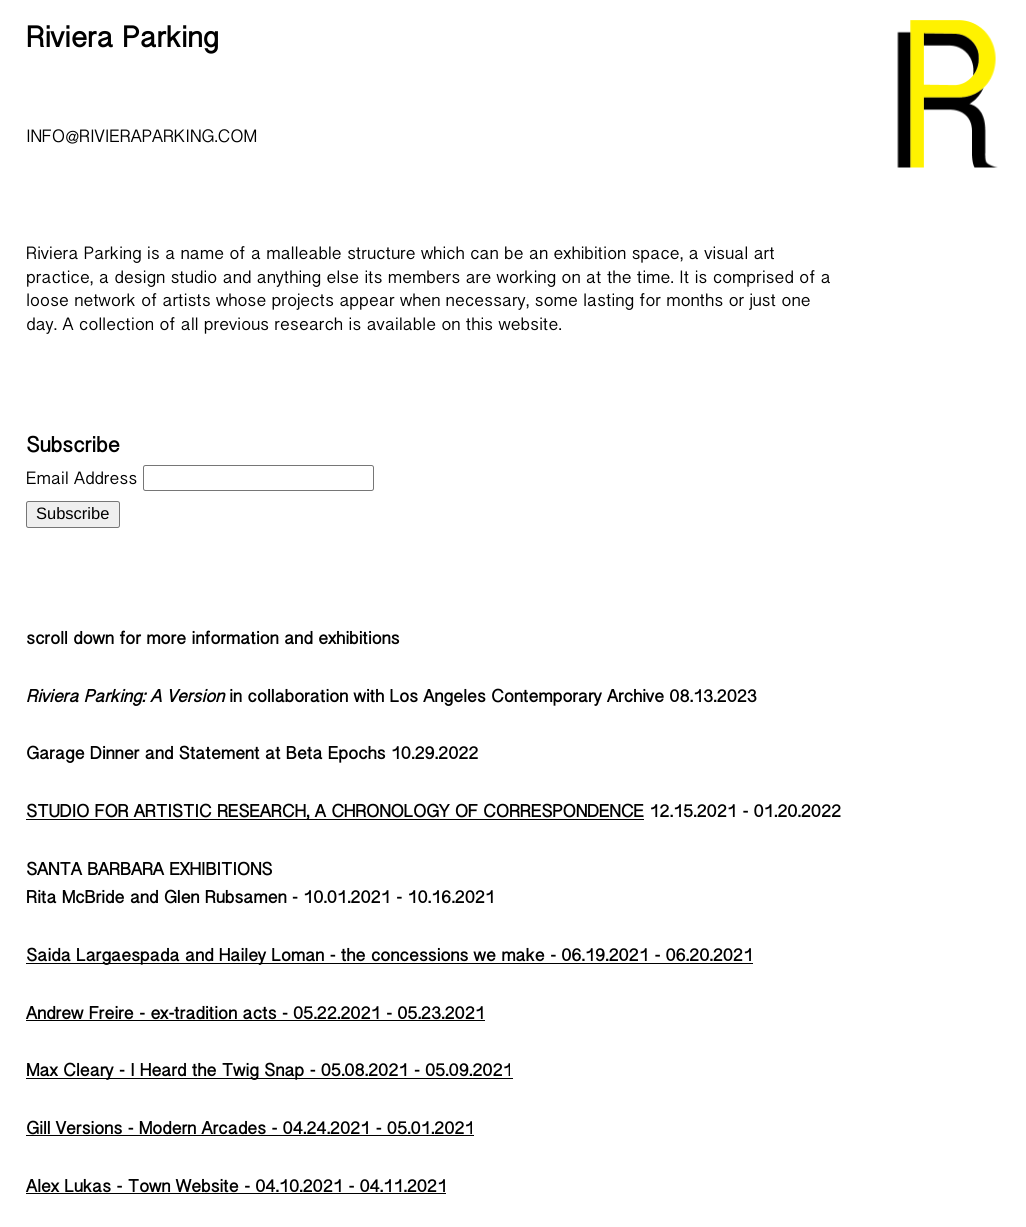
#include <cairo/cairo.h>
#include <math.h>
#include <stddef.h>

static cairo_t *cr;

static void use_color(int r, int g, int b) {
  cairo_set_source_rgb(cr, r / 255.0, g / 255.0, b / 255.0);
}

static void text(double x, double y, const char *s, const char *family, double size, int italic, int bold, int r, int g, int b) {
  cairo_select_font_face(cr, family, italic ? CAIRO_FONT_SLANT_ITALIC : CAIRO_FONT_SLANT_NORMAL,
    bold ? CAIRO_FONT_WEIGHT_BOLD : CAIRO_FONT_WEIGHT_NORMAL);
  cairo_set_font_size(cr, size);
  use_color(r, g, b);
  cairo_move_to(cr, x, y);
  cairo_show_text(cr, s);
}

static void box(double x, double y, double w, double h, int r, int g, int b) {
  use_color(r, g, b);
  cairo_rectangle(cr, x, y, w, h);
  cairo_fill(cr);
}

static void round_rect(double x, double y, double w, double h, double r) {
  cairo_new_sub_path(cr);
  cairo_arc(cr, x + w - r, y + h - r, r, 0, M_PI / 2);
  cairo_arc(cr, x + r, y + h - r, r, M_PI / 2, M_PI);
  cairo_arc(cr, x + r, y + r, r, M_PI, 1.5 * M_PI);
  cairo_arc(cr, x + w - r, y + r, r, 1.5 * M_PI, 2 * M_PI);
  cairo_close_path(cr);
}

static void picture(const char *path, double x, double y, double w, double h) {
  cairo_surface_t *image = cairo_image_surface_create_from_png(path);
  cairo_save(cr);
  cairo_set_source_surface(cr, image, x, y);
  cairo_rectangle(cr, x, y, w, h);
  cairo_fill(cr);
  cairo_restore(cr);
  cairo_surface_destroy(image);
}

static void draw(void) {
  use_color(255, 255, 255);
  cairo_paint(cr);
  picture("img_01.png", 897, 20, 101, 148);
  round_rect(143.5, 465.5, 230, 25, 2);
  use_color(118, 118, 118);
  cairo_set_line_width(cr, 1);
  cairo_stroke(cr);
  use_color(239, 239, 239);
  round_rect(26.5, 501.5, 93, 26, 2);
  cairo_fill_preserve(cr);
  use_color(118, 118, 118);
  cairo_stroke(cr);
  box(26, 819, 618, 1, 0, 0, 0);
  box(26, 963, 727, 1, 0, 0, 0);
  box(26, 1020, 459, 1, 0, 0, 0);
  box(26, 1078, 487, 1, 0, 0, 0);
  box(26, 1135, 448, 1, 0, 0, 0);
  box(26, 1193, 420, 1, 0, 0, 0);
  text(26, 47, "Riviera Parking", "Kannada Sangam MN", 30, 0, 1, 0, 0, 0);
  text(26, 142, "INFO@RIVIERAPARKING.COM", "Kannada Sangam MN", 18, 0, 0, 0, 0, 0);
  text(26, 259, "Riviera Parking is a name of a malleable structure which can be an exhibition space, a visual art", "Kannada Sangam MN", 18, 0, 0, 0, 0, 0);
  text(26, 283, "practice, a design studio and anything else its members are working on at the time. It is comprised of a", "Kannada Sangam MN", 18, 0, 0, 0, 0, 0);
  text(26, 306, "loose network of artists whose projects appear when necessary, some lasting for months or just one", "Kannada Sangam MN", 18, 0, 0, 0, 0, 0);
  text(26, 330, "day. A collection of all previous research is available on this website.", "Kannada Sangam MN", 18, 0, 0, 0, 0, 0);
  text(26, 452, "Subscribe", "Kannada Sangam MN", 22, 0, 1, 0, 0, 0);
  text(26, 484, "Email Address", "Kannada Sangam MN", 18, 0, 0, 0, 0, 0);
  text(36, 519, "Subscribe", "Liberation Sans", 16.5, 0, 0, 0, 0, 0);
  text(26, 644, "scroll down for more information and exhibitions", "Kannada Sangam MN", 18, 0, 1, 0, 0, 0);
  text(26, 702, "Riviera Parking: A Version", "Kannada Sangam MN", 18, 1, 1, 0, 0, 0);
  text(229, 702, "in collaboration with Los Angeles Contemporary Archive 08.13.2023", "Kannada Sangam MN", 18, 0, 1, 0, 0, 0);
  text(26, 759, "Garage Dinner and Statement at Beta Epochs 10.29.2022", "Kannada Sangam MN", 18, 0, 1, 0, 0, 0);
  text(26, 817, "STUDIO FOR ARTISTIC RESEARCH, A CHRONOLOGY OF CORRESPONDENCE 12.15.2021 - 01.20.2022", "Kannada Sangam MN", 18, 0, 1, 0, 0, 0);
  text(26, 875, "SANTA BARBARA EXHIBITIONS", "Kannada Sangam MN", 18, 0, 1, 0, 0, 0);
  text(26, 903, "Rita McBride and Glen Rubsamen - 10.01.2021 - 10.16.2021", "Kannada Sangam MN", 18, 0, 1, 0, 0, 0);
  text(26, 961, "Saida Largaespada and Hailey Loman - the concessions we make - 06.19.2021 - 06.20.2021", "Kannada Sangam MN", 18, 0, 1, 0, 0, 0);
  text(26, 1019, "Andrew Freire - ex-tradition acts - 05.22.2021 - 05.23.2021", "Kannada Sangam MN", 18, 0, 1, 0, 0, 0);
  text(26, 1076, "Max Cleary - I Heard the Twig Snap - 05.08.2021 - 05.09.2021", "Kannada Sangam MN", 18, 0, 1, 0, 0, 0);
  text(26, 1134, "Gill Versions - Modern Arcades - 04.24.2021 - 05.01.2021", "Kannada Sangam MN", 18, 0, 1, 0, 0, 0);
  text(26, 1192, "Alex Lukas - Town Website - 04.10.2021 - 04.11.2021", "Kannada Sangam MN", 18, 0, 1, 0, 0, 0);
}

int main(void) {
  cairo_surface_t *surface = cairo_image_surface_create(CAIRO_FORMAT_RGB24, 1026, 1227);
  cr = cairo_create(surface);
  cairo_font_options_t *options = cairo_font_options_create();
  cairo_font_options_set_hint_metrics(options, CAIRO_HINT_METRICS_OFF);
  cairo_font_options_set_hint_style(options, CAIRO_HINT_STYLE_NONE);
  cairo_set_font_options(cr, options);
  cairo_set_miter_limit(cr, 4);
  draw();
  cairo_surface_write_to_png(surface, "out.png");
  cairo_font_options_destroy(options);
  cairo_destroy(cr);
  cairo_surface_destroy(surface);
  return 0;
}
